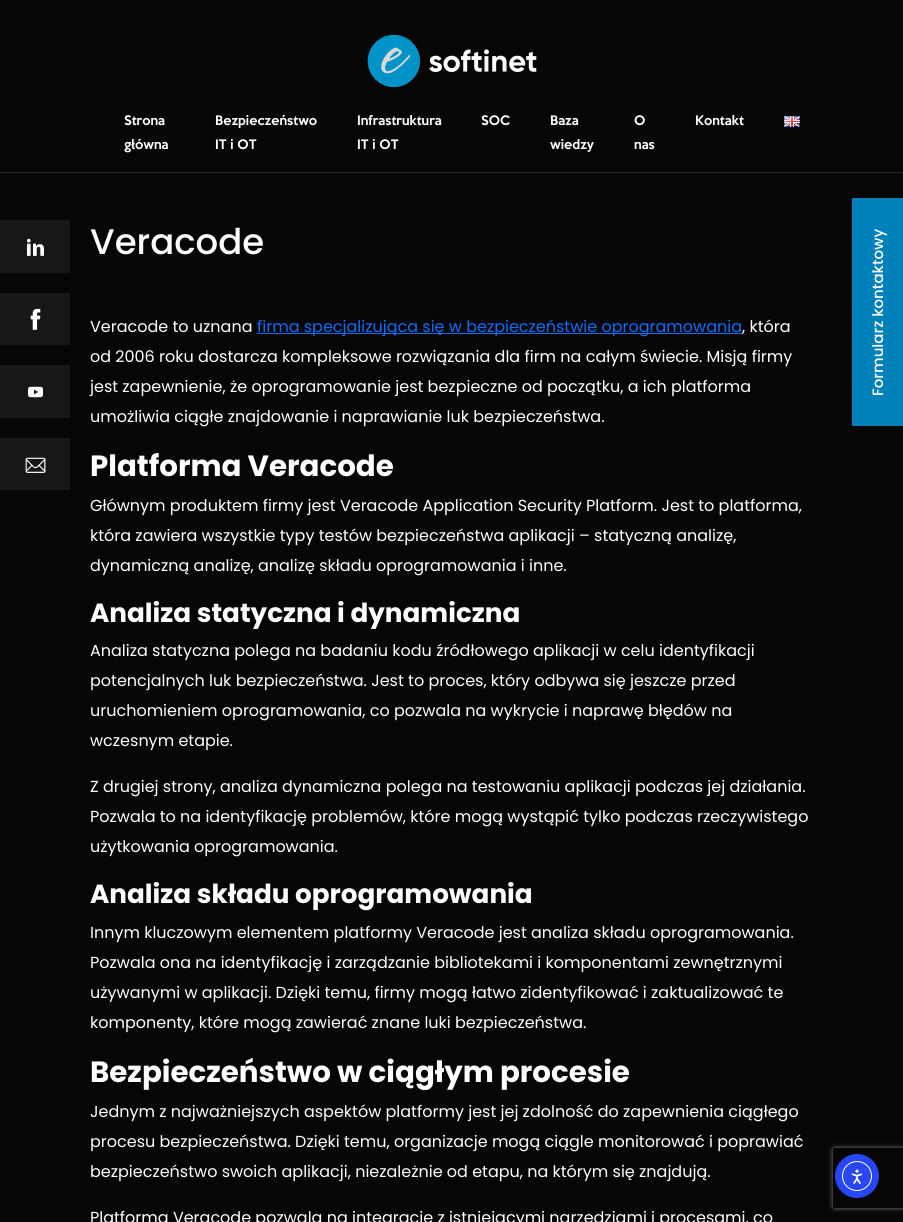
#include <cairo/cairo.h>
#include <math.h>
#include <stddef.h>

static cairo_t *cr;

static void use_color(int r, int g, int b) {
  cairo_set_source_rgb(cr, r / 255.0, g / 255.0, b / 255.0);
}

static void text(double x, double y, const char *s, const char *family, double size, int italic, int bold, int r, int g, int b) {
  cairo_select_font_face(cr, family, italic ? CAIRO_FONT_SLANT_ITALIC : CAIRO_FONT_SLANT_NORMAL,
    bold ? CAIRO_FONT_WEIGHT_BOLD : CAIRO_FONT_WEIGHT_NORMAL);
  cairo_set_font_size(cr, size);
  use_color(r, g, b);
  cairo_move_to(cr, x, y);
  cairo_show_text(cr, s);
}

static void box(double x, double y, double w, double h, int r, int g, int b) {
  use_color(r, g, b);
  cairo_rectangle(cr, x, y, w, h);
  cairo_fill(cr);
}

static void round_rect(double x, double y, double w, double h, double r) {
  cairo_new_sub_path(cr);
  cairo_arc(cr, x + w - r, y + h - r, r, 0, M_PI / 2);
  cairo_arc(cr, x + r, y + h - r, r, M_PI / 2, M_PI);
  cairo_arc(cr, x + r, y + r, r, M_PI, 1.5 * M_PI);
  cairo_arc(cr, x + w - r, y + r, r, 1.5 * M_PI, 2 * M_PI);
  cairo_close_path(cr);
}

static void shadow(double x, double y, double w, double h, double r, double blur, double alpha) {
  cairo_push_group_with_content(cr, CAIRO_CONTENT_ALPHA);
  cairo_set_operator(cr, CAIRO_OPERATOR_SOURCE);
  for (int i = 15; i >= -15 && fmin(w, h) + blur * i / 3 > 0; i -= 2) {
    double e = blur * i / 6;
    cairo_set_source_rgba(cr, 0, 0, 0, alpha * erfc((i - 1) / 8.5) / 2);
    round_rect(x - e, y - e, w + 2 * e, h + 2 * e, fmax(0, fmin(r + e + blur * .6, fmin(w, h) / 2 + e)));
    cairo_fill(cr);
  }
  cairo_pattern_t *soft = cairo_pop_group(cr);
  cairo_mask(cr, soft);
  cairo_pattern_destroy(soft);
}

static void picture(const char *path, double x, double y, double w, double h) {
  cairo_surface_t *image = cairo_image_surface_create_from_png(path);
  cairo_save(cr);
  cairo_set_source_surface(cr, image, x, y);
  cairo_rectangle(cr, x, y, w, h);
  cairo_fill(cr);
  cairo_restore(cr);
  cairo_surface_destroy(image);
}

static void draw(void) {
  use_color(6, 6, 6);
  cairo_paint(cr);
  box(0, 172, 903, 1, 36, 36, 36);
  picture("img_01.png", 367, 34, 170, 54);
  picture("img_02.png", 784, 116, 16, 11);
  box(0, 220, 70, 53, 23, 23, 23);
  picture("img_03.png", 26, 238, 18, 18);
  box(0, 293, 70, 52, 23, 23, 23);
  picture("img_04.png", 30, 308, 11, 22);
  box(0, 365, 70, 53, 23, 23, 23);
  picture("img_05.png", 28, 386, 16, 12);
  box(0, 438, 70, 52, 23, 23, 23);
  picture("img_06.png", 25, 457, 21, 16);
  box(257, 333, 485, 1, 13, 110, 253);
  box(852, 198, 51, 228, 0, 129, 186);
  cairo_save(cr);
  cairo_set_fill_rule(cr, CAIRO_FILL_RULE_EVEN_ODD);
  cairo_new_path(cr);
  cairo_move_to(cr, 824, 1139);
  cairo_line_to(cr, 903, 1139);
  cairo_line_to(cr, 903, 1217);
  cairo_line_to(cr, 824, 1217);
  cairo_close_path(cr);
  cairo_move_to(cr, 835, 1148);
  cairo_line_to(cr, 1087, 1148);
  cairo_curve_to(cr, 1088, 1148, 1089, 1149, 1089, 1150);
  cairo_line_to(cr, 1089, 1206);
  cairo_curve_to(cr, 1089, 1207, 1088, 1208, 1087, 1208);
  cairo_line_to(cr, 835, 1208);
  cairo_curve_to(cr, 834, 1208, 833, 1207, 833, 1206);
  cairo_line_to(cr, 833, 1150);
  cairo_curve_to(cr, 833, 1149, 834, 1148, 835, 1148);
  cairo_close_path(cr);
  cairo_clip(cr);
  use_color(128, 128, 128);
  shadow(833, 1148, 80, 60, 2, 2.5, 1);
  cairo_restore(cr);
  use_color(40, 71, 243);
  cairo_arc(cr, 857, 1176, 22, 0, 2 * M_PI);
  cairo_fill(cr);
  cairo_arc(cr, 857, 1176, 14.5, 0, 2 * M_PI);
  use_color(255, 255, 255);
  cairo_set_line_width(cr, 1);
  cairo_stroke(cr);
  picture("img_07.png", 851, 1169, 12, 15);
  text(124, 125, "Strona", "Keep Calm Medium", 12, 0, 0, 255, 255, 255);
  text(124, 149, "główna", "Keep Calm Medium", 12, 0, 0, 255, 255, 255);
  text(215, 125, "Bezpieczeństwo", "Keep Calm Medium", 12, 0, 0, 255, 255, 255);
  text(215, 149, "IT i OT", "Keep Calm Medium", 12, 0, 0, 255, 255, 255);
  text(357, 125, "Infrastruktura", "Keep Calm Medium", 12, 0, 0, 255, 255, 255);
  text(357, 149, "IT i OT", "Keep Calm Medium", 12, 0, 0, 255, 255, 255);
  text(481, 125, "SOC", "Keep Calm Medium", 12, 0, 0, 255, 255, 255);
  text(550, 125, "Baza", "Keep Calm Medium", 12, 0, 0, 255, 255, 255);
  text(550, 149, "wiedzy", "Keep Calm Medium", 12, 0, 0, 255, 255, 255);
  text(634, 125, "O", "Keep Calm Medium", 12, 0, 0, 255, 255, 255);
  text(634, 149, "nas", "Keep Calm Medium", 12, 0, 0, 255, 255, 255);
  text(695, 125, "Kontakt", "Keep Calm Medium", 12, 0, 0, 255, 255, 255);
  text(90, 254, "Veracode", "Poppins Medium", 35.5, 0, 0, 255, 255, 255);
  text(90, 332, "Veracode to uznana", "Poppins", 16, 0, 0, 255, 255, 255);
  text(257, 332, "firma specjalizująca się w bezpieczeństwie oprogramowania", "Poppins", 16, 0, 0, 13, 110, 253);
  text(742, 332, ", która", "Poppins", 16, 0, 0, 255, 255, 255);
  text(90, 362, "od 2006 roku dostarcza kompleksowe rozwiązania dla firm na całym świecie. Misją firmy", "Poppins", 16, 0, 0, 255, 255, 255);
  text(90, 392, "jest zapewnienie, że oprogramowanie jest bezpieczne od początku, a ich platforma", "Poppins", 16, 0, 0, 255, 255, 255);
  text(90, 422, "umożliwia ciągłe znajdowanie i naprawianie luk bezpieczeństwa.", "Poppins", 16, 0, 0, 255, 255, 255);
  text(90, 476, "Platforma Veracode", "Poppins", 29.3, 0, 1, 255, 255, 255);
  text(90, 511, "Głównym produktem firmy jest Veracode Application Security Platform. Jest to platforma,", "Poppins", 16, 0, 0, 255, 255, 255);
  text(90, 541, "która zawiera wszystkie typy testów bezpieczeństwa aplikacji – statyczną analizę,", "Poppins", 16, 0, 0, 255, 255, 255);
  text(90, 571, "dynamiczną analizę, analizę składu oprogramowania i inne.", "Poppins", 16, 0, 0, 255, 255, 255);
  text(90, 622, "Analiza statyczna i dynamiczna", "Poppins", 26.25, 0, 1, 255, 255, 255);
  text(90, 656, "Analiza statyczna polega na badaniu kodu źródłowego aplikacji w celu identyfikacji", "Poppins", 16, 0, 0, 255, 255, 255);
  text(90, 686, "potencjalnych luk bezpieczeństwa. Jest to proces, który odbywa się jeszcze przed", "Poppins", 16, 0, 0, 255, 255, 255);
  text(90, 716, "uruchomieniem oprogramowania, co pozwala na wykrycie i naprawę błędów na", "Poppins", 16, 0, 0, 255, 255, 255);
  text(90, 746, "wczesnym etapie.", "Poppins", 16, 0, 0, 255, 255, 255);
  text(90, 792, "Z drugiej strony, analiza dynamiczna polega na testowaniu aplikacji podczas jej działania.", "Poppins", 16, 0, 0, 255, 255, 255);
  text(90, 822, "Pozwala to na identyfikację problemów, które mogą wystąpić tylko podczas rzeczywistego", "Poppins", 16, 0, 0, 255, 255, 255);
  text(90, 852, "użytkowania oprogramowania.", "Poppins", 16, 0, 0, 255, 255, 255);
  text(90, 903, "Analiza składu oprogramowania", "Poppins", 26.25, 0, 1, 255, 255, 255);
  text(90, 938, "Innym kluczowym elementem platformy Veracode jest analiza składu oprogramowania.", "Poppins", 16, 0, 0, 255, 255, 255);
  text(90, 968, "Pozwala ona na identyfikację i zarządzanie bibliotekami i komponentami zewnętrznymi", "Poppins", 16, 0, 0, 255, 255, 255);
  text(90, 998, "używanymi w aplikacji. Dzięki temu, firmy mogą łatwo zidentyfikować i zaktualizować te", "Poppins", 16, 0, 0, 255, 255, 255);
  text(90, 1028, "komponenty, które mogą zawierać znane luki bezpieczeństwa.", "Poppins", 16, 0, 0, 255, 255, 255);
  text(90, 1082, "Bezpieczeństwo w ciągłym procesie", "Poppins", 29.3, 0, 1, 255, 255, 255);
  text(90, 1117, "Jednym z najważniejszych aspektów platformy jest jej zdolność do zapewnienia ciągłego", "Poppins", 16, 0, 0, 255, 255, 255);
  text(90, 1147, "procesu bezpieczeństwa. Dzięki temu, organizacje mogą ciągle monitorować i poprawiać", "Poppins", 16, 0, 0, 255, 255, 255);
  text(90, 1177, "bezpieczeństwo swoich aplikacji, niezależnie od etapu, na którym się znajdują.", "Poppins", 16, 0, 0, 255, 255, 255);
  text(90, 1223, "Platforma Veracode pozwala na integrację z istniejącymi narzędziami i procesami, co", "Poppins", 16, 0, 0, 255, 255, 255);
  cairo_save(cr);
  cairo_translate(cr, 883, 396);
  cairo_rotate(cr, -90 * M_PI / 180);
  text(0, 0, "Formularz kontaktowy", "Poppins Medium", 15, 0, 0, 255, 255, 255);
  cairo_restore(cr);
}

int main(void) {
  cairo_surface_t *surface = cairo_image_surface_create(CAIRO_FORMAT_RGB24, 903, 1222);
  cr = cairo_create(surface);
  cairo_font_options_t *options = cairo_font_options_create();
  cairo_font_options_set_hint_metrics(options, CAIRO_HINT_METRICS_OFF);
  cairo_font_options_set_hint_style(options, CAIRO_HINT_STYLE_NONE);
  cairo_set_font_options(cr, options);
  cairo_set_miter_limit(cr, 4);
  draw();
  cairo_surface_write_to_png(surface, "out.png");
  cairo_font_options_destroy(options);
  cairo_destroy(cr);
  cairo_surface_destroy(surface);
  return 0;
}
